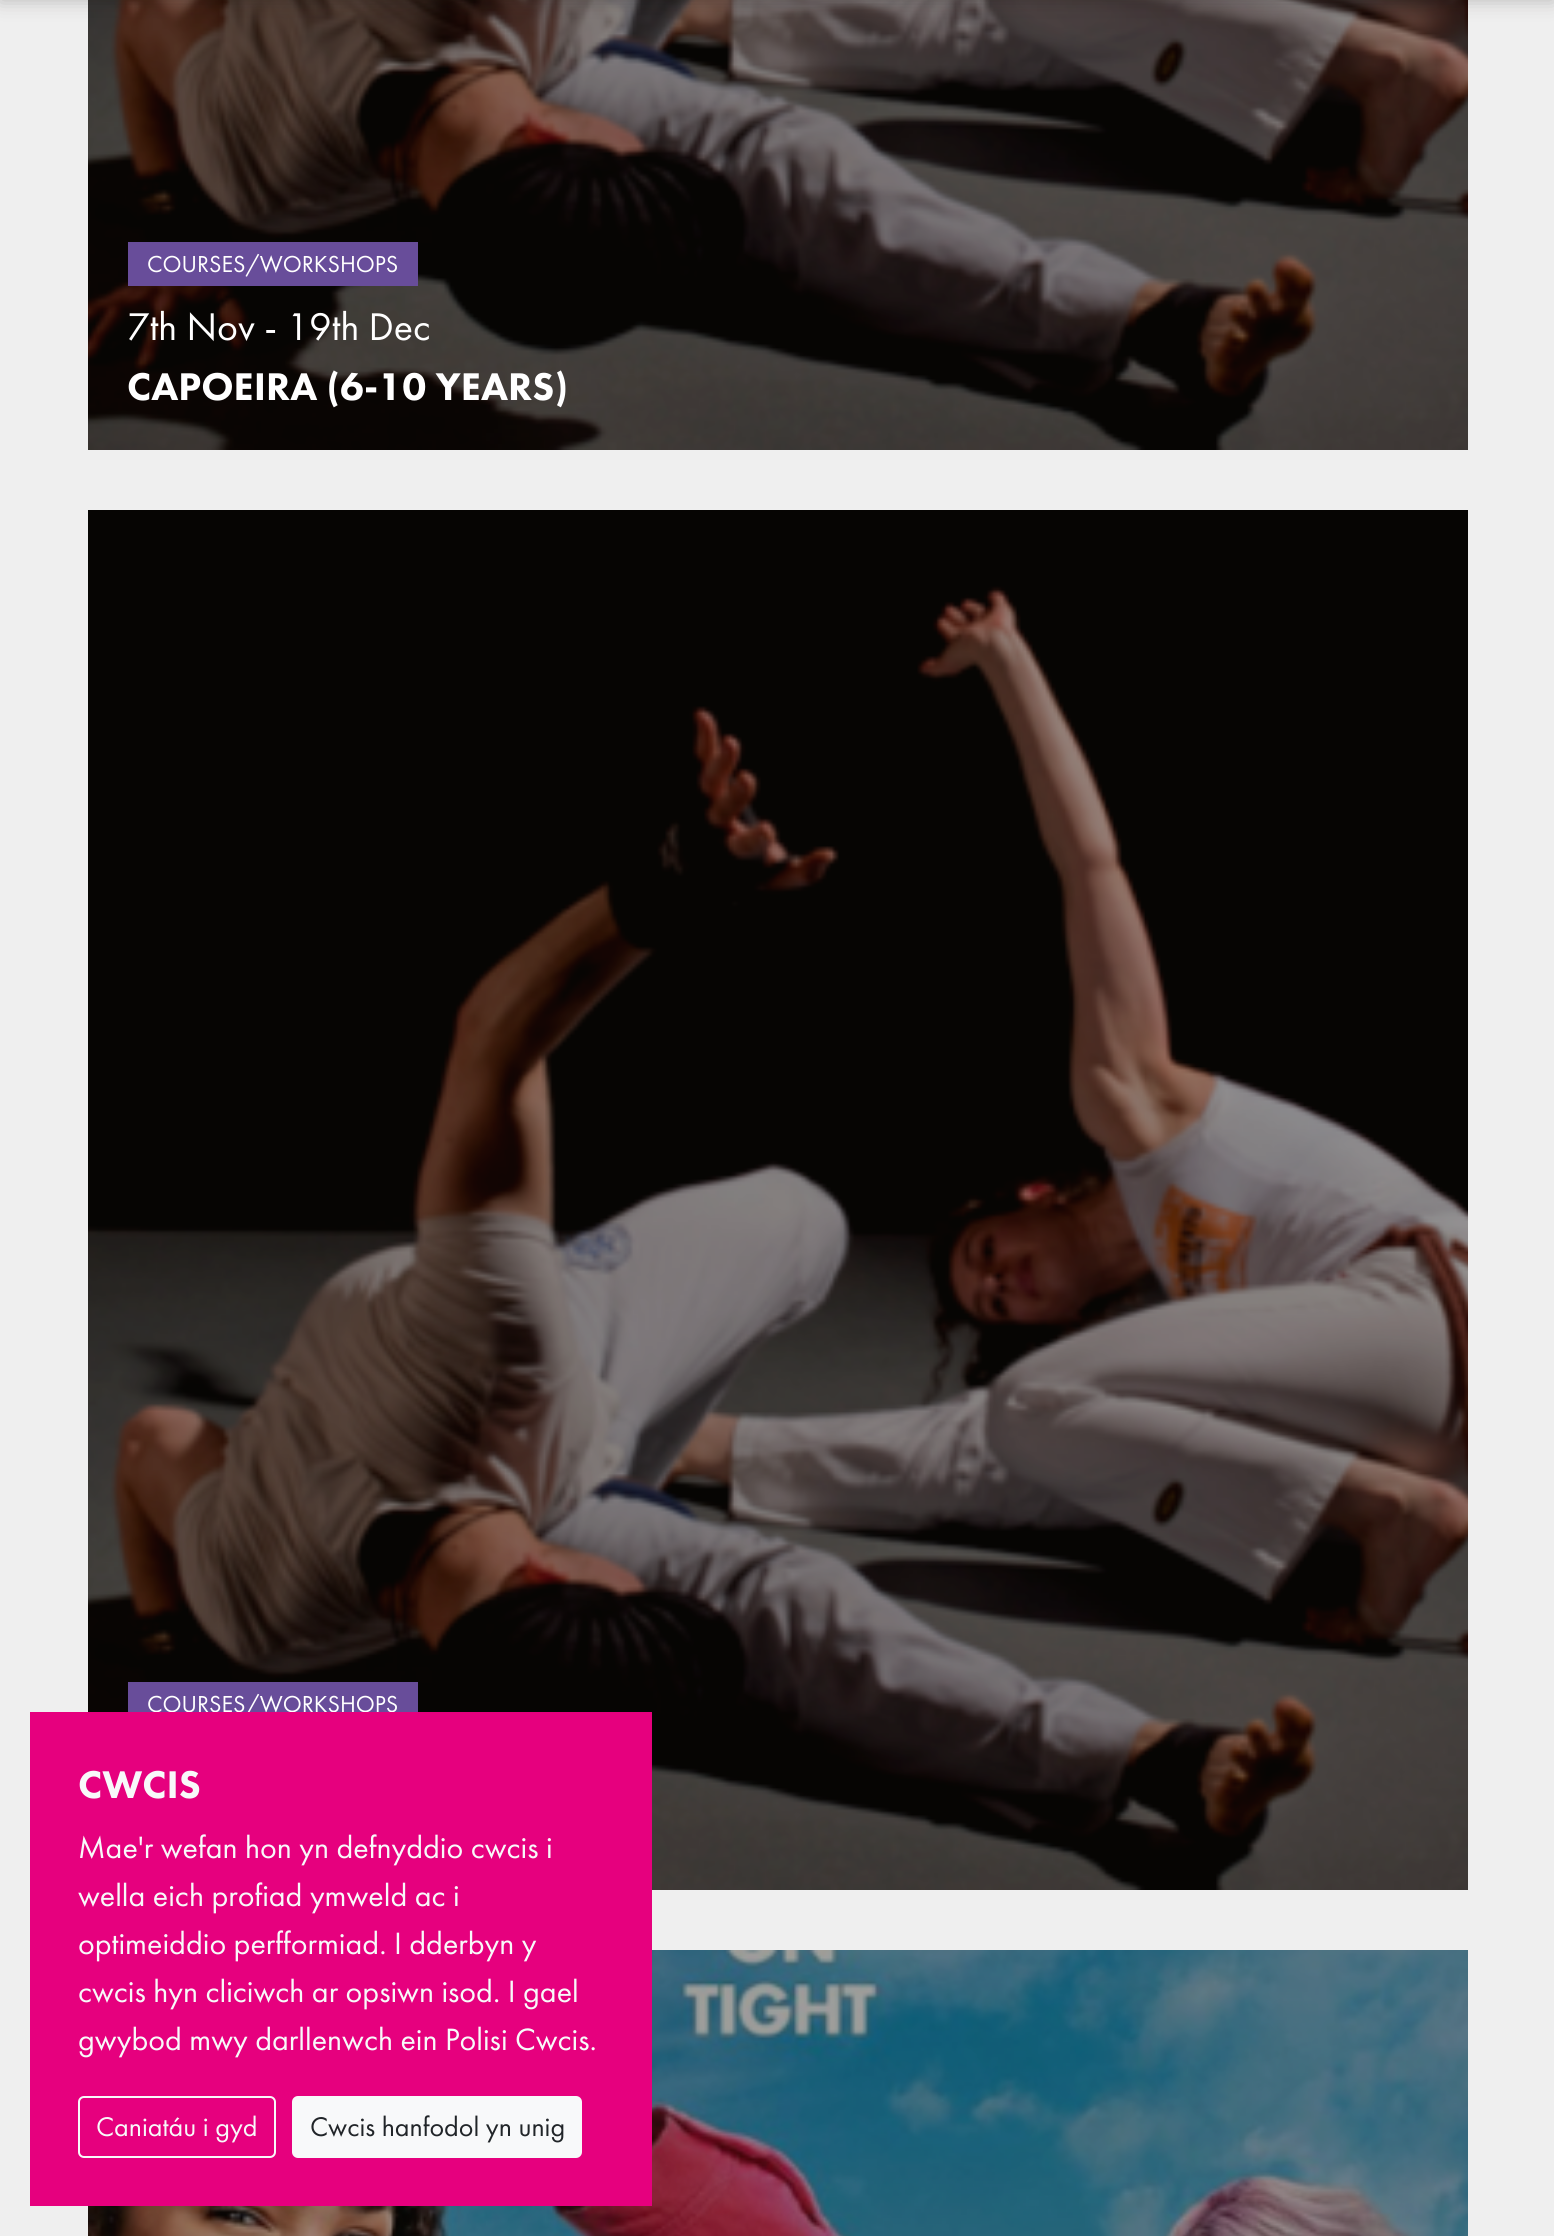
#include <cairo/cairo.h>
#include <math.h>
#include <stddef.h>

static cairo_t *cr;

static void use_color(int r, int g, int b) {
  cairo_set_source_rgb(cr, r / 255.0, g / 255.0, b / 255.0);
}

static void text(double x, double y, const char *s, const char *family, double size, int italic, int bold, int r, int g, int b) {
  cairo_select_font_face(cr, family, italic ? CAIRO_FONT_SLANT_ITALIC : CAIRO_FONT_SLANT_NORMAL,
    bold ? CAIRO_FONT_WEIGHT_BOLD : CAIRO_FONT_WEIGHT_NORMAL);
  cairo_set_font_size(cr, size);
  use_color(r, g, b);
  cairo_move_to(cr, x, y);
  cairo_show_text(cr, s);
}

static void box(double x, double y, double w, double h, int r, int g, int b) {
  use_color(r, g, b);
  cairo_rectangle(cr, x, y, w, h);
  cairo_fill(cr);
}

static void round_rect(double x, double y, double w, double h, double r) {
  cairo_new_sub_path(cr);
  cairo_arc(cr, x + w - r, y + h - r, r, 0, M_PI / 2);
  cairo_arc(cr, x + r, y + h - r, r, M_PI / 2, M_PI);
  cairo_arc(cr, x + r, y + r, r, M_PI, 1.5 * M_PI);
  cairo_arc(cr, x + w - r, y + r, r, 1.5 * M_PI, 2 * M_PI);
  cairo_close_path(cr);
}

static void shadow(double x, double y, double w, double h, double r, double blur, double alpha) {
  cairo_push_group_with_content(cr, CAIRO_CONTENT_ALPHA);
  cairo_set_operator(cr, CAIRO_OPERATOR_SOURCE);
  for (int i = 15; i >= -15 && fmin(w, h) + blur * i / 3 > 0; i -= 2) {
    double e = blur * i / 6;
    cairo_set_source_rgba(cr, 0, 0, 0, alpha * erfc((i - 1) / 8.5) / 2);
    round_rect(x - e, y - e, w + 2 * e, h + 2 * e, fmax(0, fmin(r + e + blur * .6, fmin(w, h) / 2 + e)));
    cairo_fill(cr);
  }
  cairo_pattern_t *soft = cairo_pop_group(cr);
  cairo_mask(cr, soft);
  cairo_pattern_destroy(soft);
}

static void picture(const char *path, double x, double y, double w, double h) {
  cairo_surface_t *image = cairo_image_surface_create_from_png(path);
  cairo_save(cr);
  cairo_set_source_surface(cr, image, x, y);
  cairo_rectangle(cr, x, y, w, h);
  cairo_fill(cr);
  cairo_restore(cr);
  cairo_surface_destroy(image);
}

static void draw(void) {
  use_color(239, 239, 239);
  cairo_paint(cr);
  picture("img_01.png", 88, 0, 1380, 450);
  use_color(16, 12, 8);
  shadow(0, -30, 1554, 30, 0, 10, 0.25);
  box(128, 242, 290, 44, 104, 77, 154);
  picture("img_02.png", 88, 510, 1380, 1380);
  box(128, 1682, 290, 30, 104, 77, 154);
  picture("img_03.png", 88, 1950, 1380, 286);
  text(147, 272, "COURSES/WORKSHOPS", "Futura PT", 24, 0, 0, 255, 255, 255);
  text(127, 340, "7th Nov - 19th Dec", "Futura PT", 40, 0, 0, 255, 255, 255);
  text(127, 400, "CAPOEIRA (6-10 YEARS)", "Futura PT Black", 40, 0, 0, 255, 255, 255);
  text(147, 1712, "COURSES/WORKSHOPS", "Futura PT", 24, 0, 0, 255, 255, 255);
  box(30, 1712, 622, 494, 230, 0, 126);
  text(78, 1798, "CWCIS", "Futura PT Black", 40, 0, 0, 248, 249, 250);
  text(78, 1858, "Mae'r wefan hon yn defnyddio cwcis i", "Futura PT", 32, 0, 0, 248, 249, 250);
  text(78, 1906, "wella eich profiad ymweld ac i", "Futura PT", 32, 0, 0, 248, 249, 250);
  text(78, 1954, "optimeiddio perfformiad. I dderbyn y", "Futura PT", 32, 0, 0, 248, 249, 250);
  text(78, 2002, "cwcis hyn cliciwch ar opsiwn isod. I gael", "Futura PT", 32, 0, 0, 248, 249, 250);
  text(78, 2050, "gwybod mwy darllenwch ein Polisi Cwcis.", "Futura PT", 32, 0, 0, 248, 249, 250);
  round_rect(79, 2097, 196, 60, 5);
  cairo_stroke(cr);
  text(96, 2136, "Caniatáu i gyd", "Futura PT", 28, 0, 0, 248, 249, 250);
  round_rect(293, 2097, 288, 60, 5);
  cairo_fill_preserve(cr);
  cairo_stroke(cr);
  text(310, 2136, "Cwcis hanfodol yn unig", "Futura PT", 28, 0, 0, 33, 37, 41);
}

int main(void) {
  cairo_surface_t *surface = cairo_image_surface_create(CAIRO_FORMAT_RGB24, 1554, 2236);
  cr = cairo_create(surface);
  cairo_font_options_t *options = cairo_font_options_create();
  cairo_font_options_set_hint_metrics(options, CAIRO_HINT_METRICS_OFF);
  cairo_font_options_set_hint_style(options, CAIRO_HINT_STYLE_NONE);
  cairo_set_font_options(cr, options);
  cairo_set_miter_limit(cr, 4);
  draw();
  cairo_surface_write_to_png(surface, "out.png");
  cairo_font_options_destroy(options);
  cairo_destroy(cr);
  cairo_surface_destroy(surface);
  return 0;
}
